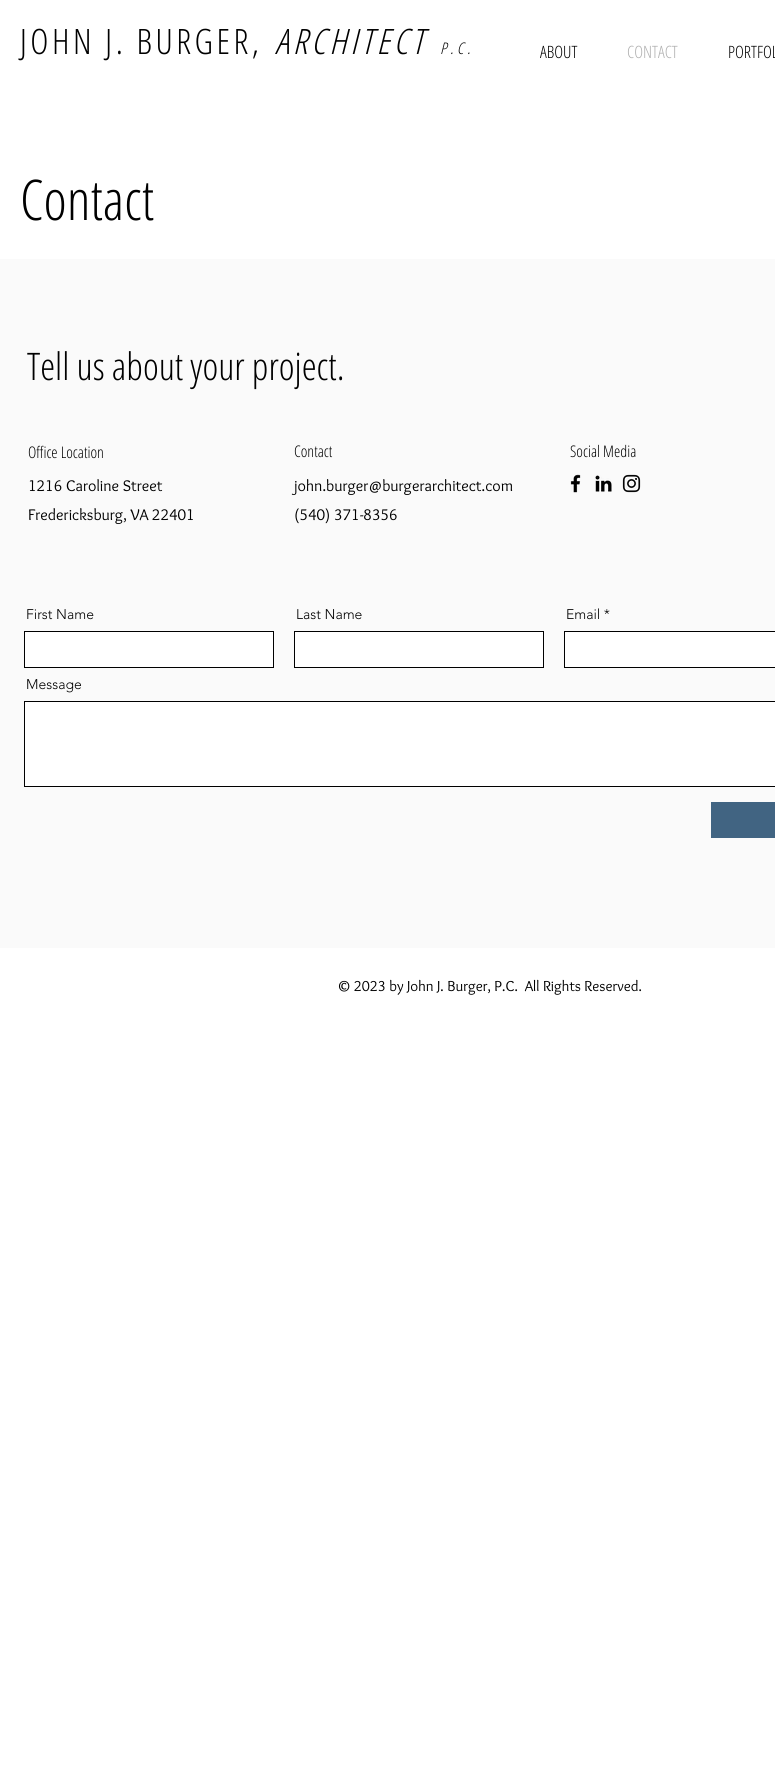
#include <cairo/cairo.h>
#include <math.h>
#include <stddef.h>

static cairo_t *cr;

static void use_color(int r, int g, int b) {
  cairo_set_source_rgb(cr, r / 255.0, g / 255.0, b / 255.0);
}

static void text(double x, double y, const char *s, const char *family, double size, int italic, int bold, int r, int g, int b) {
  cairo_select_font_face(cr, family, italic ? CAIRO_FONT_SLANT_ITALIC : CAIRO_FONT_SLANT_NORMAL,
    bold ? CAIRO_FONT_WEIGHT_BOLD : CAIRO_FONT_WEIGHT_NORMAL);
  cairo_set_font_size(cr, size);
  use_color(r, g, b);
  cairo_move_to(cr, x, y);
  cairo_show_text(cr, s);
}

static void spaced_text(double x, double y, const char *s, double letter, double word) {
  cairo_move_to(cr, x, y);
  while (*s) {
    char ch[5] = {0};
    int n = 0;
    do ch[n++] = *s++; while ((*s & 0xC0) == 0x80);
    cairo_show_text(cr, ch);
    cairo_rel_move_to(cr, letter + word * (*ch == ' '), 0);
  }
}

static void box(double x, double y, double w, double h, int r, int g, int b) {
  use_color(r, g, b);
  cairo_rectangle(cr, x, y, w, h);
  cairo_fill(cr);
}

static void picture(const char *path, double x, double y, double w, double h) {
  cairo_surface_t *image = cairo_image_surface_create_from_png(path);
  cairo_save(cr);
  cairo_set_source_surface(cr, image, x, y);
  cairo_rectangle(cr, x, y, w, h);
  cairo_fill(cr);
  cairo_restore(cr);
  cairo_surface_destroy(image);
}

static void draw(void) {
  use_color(255, 255, 255);
  cairo_paint(cr);
  box(0, 259, 775, 689, 250, 250, 250);
  picture("img_01.png", 570, 474, 11, 19);
  picture("img_02.png", 595, 475, 17, 17);
  picture("img_03.png", 622, 474, 19, 19);
  use_color(255, 255, 255);
  cairo_rectangle(cr, 24.5, 631.5, 249, 36);
  cairo_fill_preserve(cr);
  use_color(0, 0, 0);
  cairo_set_line_width(cr, 1);
  cairo_stroke(cr);
  use_color(255, 255, 255);
  cairo_rectangle(cr, 294.5, 631.5, 249, 36);
  cairo_fill_preserve(cr);
  use_color(0, 0, 0);
  cairo_stroke(cr);
  use_color(255, 255, 255);
  cairo_rectangle(cr, 564.5, 631.5, 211, 36);
  cairo_fill_preserve(cr);
  use_color(0, 0, 0);
  cairo_stroke(cr);
  use_color(255, 255, 255);
  cairo_rectangle(cr, 24.5, 701.5, 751, 85);
  cairo_fill_preserve(cr);
  use_color(0, 0, 0);
  cairo_stroke(cr);
  box(711, 802, 64, 36, 65, 100, 130);
  cairo_select_font_face(cr, "Open Sans Condensed Light", CAIRO_FONT_SLANT_NORMAL, CAIRO_FONT_WEIGHT_NORMAL);
  cairo_set_font_size(cr, 35);
  use_color(0, 0, 0);
  spaced_text(20, 54, "JOHN J. BURGER,", 3.5, 0);
  cairo_select_font_face(cr, "Open Sans Condensed Light", CAIRO_FONT_SLANT_ITALIC, CAIRO_FONT_WEIGHT_NORMAL);
  spaced_text(275, 54, "ARCHITECT", 3.5, 0);
  cairo_set_font_size(cr, 16);
  spaced_text(440, 54, "P.C.", 3.5, 0);
  text(540, 58, "ABOUT", "Open Sans Condensed Light", 17, 0, 0, 0, 0, 0);
  text(627, 58, "CONTACT", "Open Sans Condensed Light", 17, 0, 0, 175, 175, 175);
  text(728, 58, "PORTFOL", "Open Sans Condensed Light", 17, 0, 0, 0, 0, 0);
  text(20, 220, "Contact", "Open Sans Condensed Light", 56, 0, 0, 0, 0, 0);
  text(27, 380, "Tell us about your project.", "Open Sans Condensed Light", 38, 0, 0, 0, 0, 0);
  text(28, 458, "Office Location", "Open Sans Condensed Light", 16, 0, 0, 0, 0, 0);
  text(294, 457, "Contact", "Open Sans Condensed Light", 16, 0, 0, 0, 0, 0);
  text(570, 457, "Social Media", "Open Sans Condensed Light", 16, 0, 0, 0, 0, 0);
  text(28, 491, "1216 Caroline Street", "Overlock", 16, 0, 0, 0, 0, 0);
  text(28, 520, "Fredericksburg, VA 22401", "Overlock", 16, 0, 0, 0, 0, 0);
  text(294, 491, "john.burger@burgerarchitect.com", "Overlock", 16, 0, 0, 0, 0, 0);
  text(294, 520, "(540) 371-8356", "Overlock", 16, 0, 0, 0, 0, 0);
  text(26, 619, "First Name", "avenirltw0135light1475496 Light", 14, 0, 0, 0, 0, 0);
  text(296, 619, "Last Name", "avenirltw0135light1475496 Light", 14, 0, 0, 0, 0, 0);
  text(566, 619, "Email *", "avenirltw0135light1475496 Light", 14, 0, 0, 0, 0, 0);
  text(26, 689, "Message", "avenirltw0135light1475496 Light", 14, 0, 0, 0, 0, 0);
  text(337, 991, "© 2023 by John J. Burger, P.C.  All Rights Reserved.", "Overlock", 15, 0, 0, 0, 0, 0);
}

int main(void) {
  cairo_surface_t *surface = cairo_image_surface_create(CAIRO_FORMAT_RGB24, 775, 1782);
  cr = cairo_create(surface);
  cairo_font_options_t *options = cairo_font_options_create();
  cairo_font_options_set_hint_metrics(options, CAIRO_HINT_METRICS_OFF);
  cairo_font_options_set_hint_style(options, CAIRO_HINT_STYLE_NONE);
  cairo_set_font_options(cr, options);
  cairo_set_miter_limit(cr, 4);
  draw();
  cairo_surface_write_to_png(surface, "out.png");
  cairo_font_options_destroy(options);
  cairo_destroy(cr);
  cairo_surface_destroy(surface);
  return 0;
}
